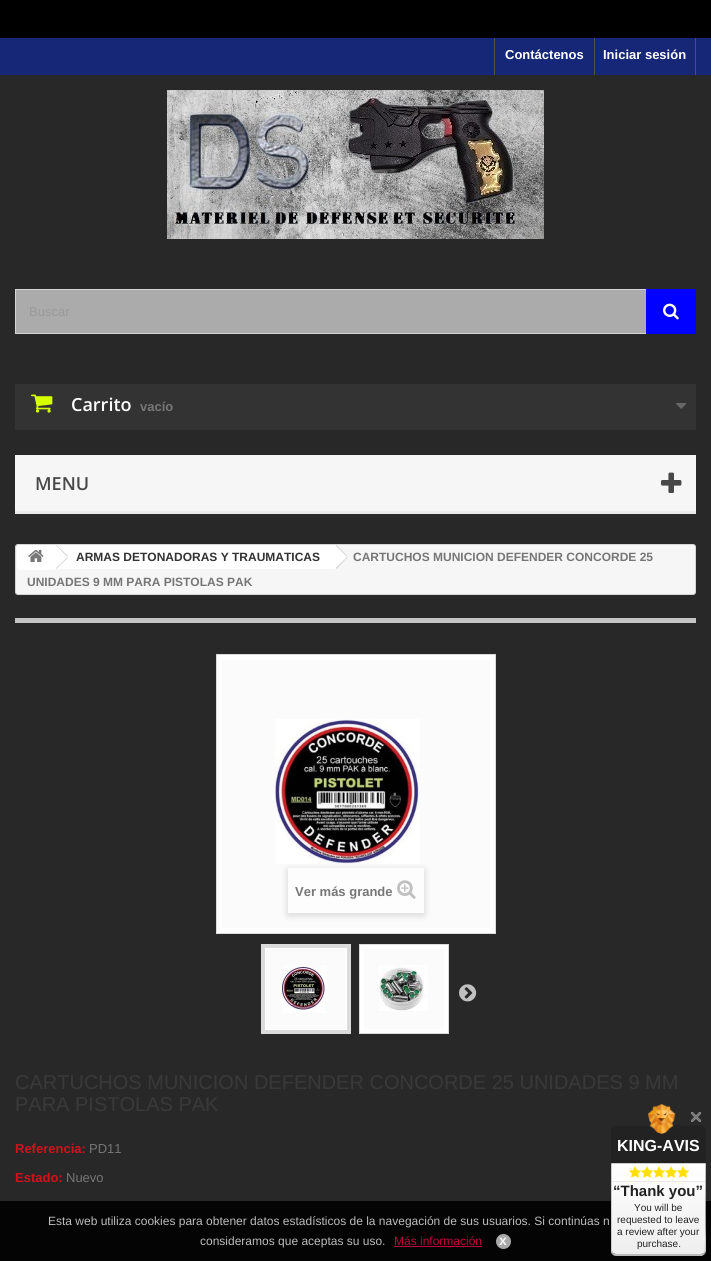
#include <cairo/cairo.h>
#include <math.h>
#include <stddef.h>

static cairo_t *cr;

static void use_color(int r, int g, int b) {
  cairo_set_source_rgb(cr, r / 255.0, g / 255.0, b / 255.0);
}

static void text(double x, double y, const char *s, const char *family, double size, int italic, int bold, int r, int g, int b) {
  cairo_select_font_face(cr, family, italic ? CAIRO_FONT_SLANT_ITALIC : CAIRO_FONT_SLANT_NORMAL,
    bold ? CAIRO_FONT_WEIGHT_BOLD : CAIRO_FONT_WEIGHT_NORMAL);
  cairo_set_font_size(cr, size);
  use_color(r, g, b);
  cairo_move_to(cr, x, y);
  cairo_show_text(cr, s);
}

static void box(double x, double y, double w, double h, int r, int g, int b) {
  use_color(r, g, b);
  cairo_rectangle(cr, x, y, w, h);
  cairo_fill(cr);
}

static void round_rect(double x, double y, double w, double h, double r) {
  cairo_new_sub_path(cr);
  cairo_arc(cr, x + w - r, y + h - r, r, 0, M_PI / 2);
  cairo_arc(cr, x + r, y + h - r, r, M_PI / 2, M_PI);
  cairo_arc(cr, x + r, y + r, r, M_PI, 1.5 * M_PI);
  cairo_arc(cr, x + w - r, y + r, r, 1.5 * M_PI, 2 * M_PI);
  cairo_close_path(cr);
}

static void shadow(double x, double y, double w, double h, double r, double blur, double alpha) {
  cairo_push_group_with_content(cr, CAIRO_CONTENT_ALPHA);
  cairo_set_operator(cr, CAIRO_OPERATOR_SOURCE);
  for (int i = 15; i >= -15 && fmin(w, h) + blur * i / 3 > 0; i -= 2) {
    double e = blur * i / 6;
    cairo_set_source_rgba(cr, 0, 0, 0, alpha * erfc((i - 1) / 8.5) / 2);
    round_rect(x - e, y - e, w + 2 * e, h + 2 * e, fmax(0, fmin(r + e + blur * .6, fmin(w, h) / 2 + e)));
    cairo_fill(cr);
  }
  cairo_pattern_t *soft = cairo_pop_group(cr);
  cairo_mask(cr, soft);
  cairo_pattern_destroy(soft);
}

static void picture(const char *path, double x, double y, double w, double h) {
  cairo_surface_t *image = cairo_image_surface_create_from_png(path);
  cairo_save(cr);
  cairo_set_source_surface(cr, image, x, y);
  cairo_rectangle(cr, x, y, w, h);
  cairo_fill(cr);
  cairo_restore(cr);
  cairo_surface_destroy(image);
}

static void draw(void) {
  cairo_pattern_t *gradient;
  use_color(40, 40, 40);
  cairo_paint(cr);
  box(0, 1201, 711, 60, 4, 4, 4);
  box(0, 0, 711, 38, 0, 0, 0);
  box(0, 38, 711, 37, 23, 39, 119);
  box(494, 38, 1, 37, 81, 81, 81);
  box(695, 38, 1, 37, 81, 81, 81);
  box(594, 38, 1, 37, 81, 81, 81);
  picture("img_01.png", 167, 90, 377, 149);
  box(16, 290, 630, 43, 171, 171, 171);
  cairo_rectangle(cr, 15.5, 289.5, 680, 44);
  use_color(214, 212, 212);
  cairo_set_line_width(cr, 1);
  cairo_stroke(cr);
  box(646, 289, 50, 45, 1, 1, 255);
  picture("img_02.png", 663, 303, 16, 17);
  box(15, 384, 681, 46, 51, 51, 51);
  picture("img_03.png", 31, 394, 22, 19);
  picture("img_04.png", 676, 403, 11, 6);
  box(15, 455, 681, 56, 246, 246, 246);
  box(15, 511, 681, 3, 233, 233, 233);
  picture("img_05.png", 661, 472, 21, 21);
  use_color(246, 246, 246);
  round_rect(15.5, 544.5, 680, 50, 2.5);
  cairo_fill_preserve(cr);
  use_color(214, 212, 212);
  cairo_stroke(cr);
  use_color(255, 255, 255);
  cairo_new_path(cr);
  cairo_move_to(cr, 20, 545);
  cairo_line_to(cr, 55, 545);
  cairo_line_to(cr, 55, 570);
  cairo_line_to(cr, 20, 570);
  cairo_curve_to(cr, 18.5, 570, 17, 568.5, 17, 567);
  cairo_line_to(cr, 17, 548);
  cairo_curve_to(cr, 17, 546.5, 18.5, 545, 20, 545);
  cairo_close_path(cr);
  cairo_fill(cr);
  picture("img_06.png", 28, 549, 16, 13);
  box(55, 545, 280, 24, 255, 255, 255);
  cairo_new_path(cr);
  cairo_move_to(cr, 57.5, 545.5);
  cairo_line_to(cr, 67.5, 555.5);
  cairo_curve_to(cr, 68, 556, 68, 557.5, 67.5, 558);
  cairo_line_to(cr, 57.5, 568);
  cairo_curve_to(cr, 56.5, 569, 55.5, 569, 54.5, 568);
  cairo_line_to(cr, 44.5, 558);
  cairo_curve_to(cr, 44, 557.5, 44, 556, 44.5, 555.5);
  cairo_line_to(cr, 54.5, 545.5);
  cairo_curve_to(cr, 55.5, 544.5, 56.5, 544.5, 57.5, 545.5);
  cairo_close_path(cr);
  cairo_fill(cr);
  use_color(214, 212, 212);
  cairo_new_path(cr);
  cairo_move_to(cr, 56.5, 545);
  cairo_line_to(cr, 68, 556);
  cairo_line_to(cr, 67.5, 557);
  cairo_line_to(cr, 56, 545.5);
  cairo_close_path(cr);
  cairo_move_to(cr, 67.5, 557);
  cairo_line_to(cr, 68, 557.5);
  cairo_line_to(cr, 56.5, 569);
  cairo_line_to(cr, 56, 568);
  cairo_close_path(cr);
  cairo_fill(cr);
  use_color(255, 255, 255);
  cairo_new_path(cr);
  cairo_move_to(cr, 337, 545.5);
  cairo_line_to(cr, 347, 555.5);
  cairo_curve_to(cr, 348, 556, 348, 557.5, 347, 558);
  cairo_line_to(cr, 337, 568);
  cairo_curve_to(cr, 336.5, 569, 335, 569, 334.5, 568);
  cairo_line_to(cr, 324.5, 558);
  cairo_curve_to(cr, 323.5, 557.5, 323.5, 556, 324.5, 555.5);
  cairo_line_to(cr, 334.5, 545.5);
  cairo_curve_to(cr, 335, 544.5, 336.5, 544.5, 337, 545.5);
  cairo_close_path(cr);
  cairo_fill(cr);
  use_color(214, 212, 212);
  cairo_new_path(cr);
  cairo_move_to(cr, 336.5, 545);
  cairo_line_to(cr, 347.5, 556);
  cairo_line_to(cr, 347, 557);
  cairo_line_to(cr, 335.5, 545.5);
  cairo_close_path(cr);
  cairo_move_to(cr, 347, 557);
  cairo_line_to(cr, 347.5, 557.5);
  cairo_line_to(cr, 336.5, 569);
  cairo_line_to(cr, 335.5, 568);
  cairo_close_path(cr);
  cairo_fill(cr);
  box(15, 618, 681, 5, 196, 196, 196);
  use_color(255, 255, 255);
  cairo_rectangle(cr, 216.5, 654.5, 279, 279);
  cairo_fill_preserve(cr);
  use_color(219, 219, 219);
  cairo_stroke(cr);
  box(222, 660, 268, 268, 251, 251, 251);
  picture("img_07.png", 275, 719, 145, 145);
  use_color(0, 0, 0);
  shadow(288, 870, 136, 45, 0, 4, 0.16);
  box(288, 868, 136, 45, 253, 253, 253);
  picture("img_08.png", 397, 880, 19, 19);
  cairo_rectangle(cr, 261.5, 944.5, 89, 89);
  use_color(219, 219, 219);
  cairo_stroke(cr);
  box(266, 949, 80, 80, 251, 251, 251);
  cairo_rectangle(cr, 263.5, 946.5, 85, 85);
  use_color(219, 219, 219);
  cairo_set_line_width(cr, 3);
  cairo_stroke(cr);
  cairo_rectangle(cr, 265.5, 948.5, 81, 81);
  use_color(255, 255, 255);
  cairo_set_line_width(cr, 1);
  cairo_stroke(cr);
  picture("img_09.png", 282, 965, 45, 48);
  cairo_rectangle(cr, 359.5, 944.5, 89, 89);
  use_color(219, 219, 219);
  cairo_stroke(cr);
  box(364, 949, 80, 80, 251, 251, 251);
  cairo_rectangle(cr, 361.5, 946.5, 85, 85);
  use_color(255, 255, 255);
  cairo_set_line_width(cr, 3);
  cairo_stroke(cr);
  cairo_rectangle(cr, 363.5, 948.5, 81, 81);
  cairo_set_line_width(cr, 1);
  cairo_stroke(cr);
  picture("img_10.png", 379, 965, 49, 46);
  picture("img_11.png", 459, 984, 18, 18);
  cairo_set_source_rgba(cr, 0.812, 0, 0.278, 0.9);
  cairo_rectangle(cr, 394, 1246, 88, 1);
  cairo_fill(cr);
  cairo_set_source_rgba(cr, 0.733, 0.733, 0.733, 0.9);
  cairo_arc(cr, 503.5, 1241.5, 7.5, 0, 2 * M_PI);
  cairo_fill(cr);
  picture("img_12.png", 611, 1103, 95, 31);
  box(611, 1134, 95, 29, 34, 34, 34);
  gradient = cairo_pattern_create_linear(659, 1164, 659, 1254);
  cairo_pattern_add_color_stop_rgba(gradient, 0, 1, 1, 1, 1);
  cairo_pattern_add_color_stop_rgba(gradient, 1, 0.933, 0.933, 0.933, 1);
  cairo_set_source(cr, gradient);
  cairo_pattern_destroy(gradient);
  cairo_new_path(cr);
  cairo_move_to(cr, 612, 1164);
  cairo_line_to(cr, 705, 1164);
  cairo_line_to(cr, 705, 1251);
  cairo_curve_to(cr, 705, 1253, 703, 1254, 701, 1254);
  cairo_line_to(cr, 616, 1254);
  cairo_curve_to(cr, 614, 1254, 612, 1253, 612, 1251);
  cairo_close_path(cr);
  cairo_fill(cr);
  use_color(204, 204, 204);
  cairo_new_path(cr);
  cairo_move_to(cr, 611, 1163);
  cairo_line_to(cr, 612, 1164);
  cairo_line_to(cr, 705, 1164);
  cairo_line_to(cr, 706, 1163);
  cairo_close_path(cr);
  cairo_fill(cr);
  cairo_new_path(cr);
  cairo_move_to(cr, 706, 1163);
  cairo_line_to(cr, 705, 1164);
  cairo_curve_to(cr, 705, 1173, 706, 1251, 704, 1253);
  cairo_line_to(cr, 705, 1254);
  cairo_line_to(cr, 706, 1251);
  cairo_close_path(cr);
  cairo_fill(cr);
  use_color(187, 187, 187);
  cairo_new_path(cr);
  cairo_move_to(cr, 616, 1256);
  cairo_line_to(cr, 702, 1256);
  cairo_line_to(cr, 705, 1254);
  cairo_line_to(cr, 704, 1253);
  cairo_line_to(cr, 701, 1254);
  cairo_line_to(cr, 616, 1254);
  cairo_line_to(cr, 613, 1253);
  cairo_line_to(cr, 612, 1254);
  cairo_curve_to(cr, 613, 1255, 614, 1256, 616, 1256);
  cairo_close_path(cr);
  cairo_fill(cr);
  use_color(204, 204, 204);
  cairo_new_path(cr);
  cairo_move_to(cr, 612, 1164);
  cairo_line_to(cr, 611, 1163);
  cairo_line_to(cr, 611, 1251);
  cairo_curve_to(cr, 611, 1252, 611, 1253, 612, 1254);
  cairo_line_to(cr, 613, 1253);
  cairo_line_to(cr, 612, 1251);
  cairo_close_path(cr);
  cairo_fill(cr);
  picture("img_13.png", 691, 1112, 10, 10);
  box(612, 1177, 93, 4, 255, 255, 255);
  box(612, 1181, 93, 1, 233, 233, 233);
  picture("img_14.png", 629, 1166, 12, 12);
  picture("img_14.png", 641, 1166, 12, 12);
  picture("img_14.png", 653, 1166, 12, 12);
  picture("img_15.png", 665, 1166, 12, 12);
  picture("img_14.png", 677, 1166, 12, 12);
  text(505, 59, "Contáctenos", "Liberation Sans", 13, 0, 1, 255, 255, 255);
  text(603, 59, "Iniciar sesión", "Liberation Sans", 13, 0, 1, 255, 255, 255);
  text(29, 316, "Buscar", "Liberation Sans", 13, 0, 0, 153, 153, 153);
  text(71, 411, "Carrito", "Open Sans SemiBold", 18, 0, 0, 255, 255, 255);
  text(140, 411, "vacío", "Liberation Sans", 13, 0, 1, 119, 118, 118);
  text(35, 490, "MENU", "Open Sans SemiBold", 18, 0, 0, 72, 72, 72);
  text(76, 561, "ARMAS DETONADORAS Y TRAUMATICAS", "Liberation Sans", 12, 0, 1, 51, 51, 51);
  text(353, 561, "CARTUCHOS MUNICION DEFENDER CONCORDE 25", "Liberation Sans", 12, 0, 1, 119, 118, 118);
  text(27, 586, "UNIDADES 9 MM PARA PISTOLAS PAK", "Liberation Sans", 12, 0, 1, 119, 118, 118);
  text(295, 896, "Ver más grande", "Liberation Sans", 13, 0, 1, 119, 118, 118);
  text(15, 1089, "CARTUCHOS MUNICION DEFENDER CONCORDE 25 UNIDADES 9 MM", "Liberation Sans", 20, 0, 0, 58, 57, 57);
  text(15, 1111, "PARA PISTOLAS PAK", "Liberation Sans", 20, 0, 0, 58, 57, 57);
  text(15, 1153, "Referencia:", "Liberation Sans", 13, 0, 1, 210, 16, 30);
  text(89, 1153, "PD11", "Liberation Sans", 13, 0, 0, 119, 118, 118);
  text(15, 1182, "Estado:", "Liberation Sans", 13, 0, 1, 210, 16, 30);
  text(66, 1182, "Nuevo", "Liberation Sans", 13, 0, 0, 119, 118, 118);
  text(48, 1225, "Esta web utiliza cookies para obtener datos estadísticos de la navegación de sus usuarios. Si continúas n", "Liberation Sans", 12, 0, 0, 188, 188, 188);
  text(200, 1245, "consideramos que aceptas su uso.", "Liberation Sans", 12, 0, 0, 188, 188, 188);
  text(394, 1245, "Más información", "Liberation Sans", 12, 0, 0, 187, 0, 64);
  text(499, 1245, "x", "Liberation Sans", 14, 0, 1, 246, 246, 246);
  text(617, 1151, "KING-AVIS", "Liberation Sans", 16, 0, 1, 255, 255, 255);
  text(613, 1196, "“Thank you”", "Liberation Sans", 15, 0, 1, 34, 34, 34);
  text(634, 1211, "You will be", "Liberation Sans", 10, 0, 0, 34, 34, 34);
  text(617, 1223, "requested to leave", "Liberation Sans", 10, 0, 0, 34, 34, 34);
  text(617, 1235, "a review after your", "Liberation Sans", 10, 0, 0, 34, 34, 34);
  text(637, 1247, "purchase.", "Liberation Sans", 10, 0, 0, 34, 34, 34);
}

int main(void) {
  cairo_surface_t *surface = cairo_image_surface_create(CAIRO_FORMAT_RGB24, 711, 1261);
  cr = cairo_create(surface);
  cairo_font_options_t *options = cairo_font_options_create();
  cairo_font_options_set_hint_metrics(options, CAIRO_HINT_METRICS_OFF);
  cairo_font_options_set_hint_style(options, CAIRO_HINT_STYLE_NONE);
  cairo_set_font_options(cr, options);
  cairo_set_miter_limit(cr, 4);
  draw();
  cairo_surface_write_to_png(surface, "out.png");
  cairo_font_options_destroy(options);
  cairo_destroy(cr);
  cairo_surface_destroy(surface);
  return 0;
}
